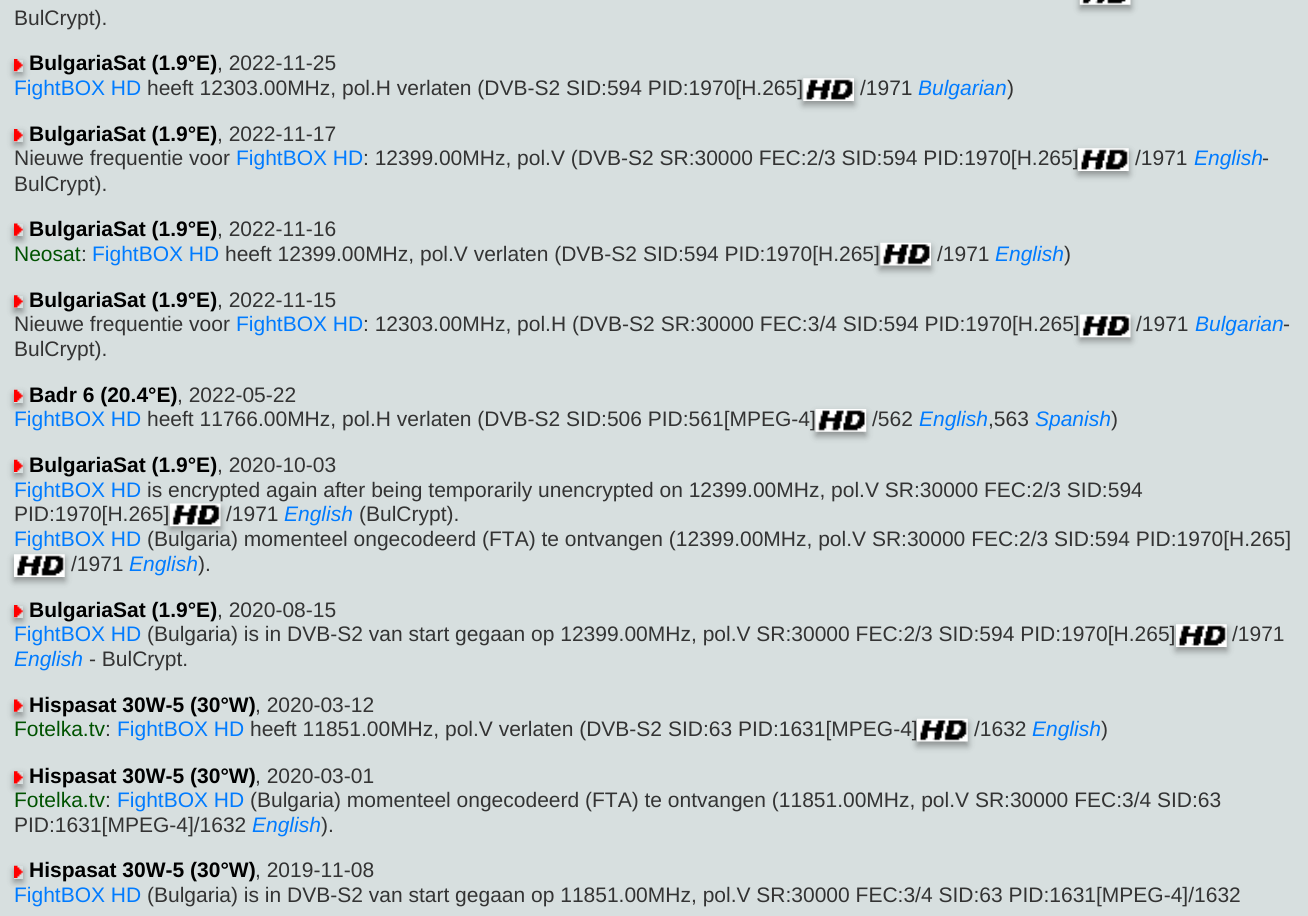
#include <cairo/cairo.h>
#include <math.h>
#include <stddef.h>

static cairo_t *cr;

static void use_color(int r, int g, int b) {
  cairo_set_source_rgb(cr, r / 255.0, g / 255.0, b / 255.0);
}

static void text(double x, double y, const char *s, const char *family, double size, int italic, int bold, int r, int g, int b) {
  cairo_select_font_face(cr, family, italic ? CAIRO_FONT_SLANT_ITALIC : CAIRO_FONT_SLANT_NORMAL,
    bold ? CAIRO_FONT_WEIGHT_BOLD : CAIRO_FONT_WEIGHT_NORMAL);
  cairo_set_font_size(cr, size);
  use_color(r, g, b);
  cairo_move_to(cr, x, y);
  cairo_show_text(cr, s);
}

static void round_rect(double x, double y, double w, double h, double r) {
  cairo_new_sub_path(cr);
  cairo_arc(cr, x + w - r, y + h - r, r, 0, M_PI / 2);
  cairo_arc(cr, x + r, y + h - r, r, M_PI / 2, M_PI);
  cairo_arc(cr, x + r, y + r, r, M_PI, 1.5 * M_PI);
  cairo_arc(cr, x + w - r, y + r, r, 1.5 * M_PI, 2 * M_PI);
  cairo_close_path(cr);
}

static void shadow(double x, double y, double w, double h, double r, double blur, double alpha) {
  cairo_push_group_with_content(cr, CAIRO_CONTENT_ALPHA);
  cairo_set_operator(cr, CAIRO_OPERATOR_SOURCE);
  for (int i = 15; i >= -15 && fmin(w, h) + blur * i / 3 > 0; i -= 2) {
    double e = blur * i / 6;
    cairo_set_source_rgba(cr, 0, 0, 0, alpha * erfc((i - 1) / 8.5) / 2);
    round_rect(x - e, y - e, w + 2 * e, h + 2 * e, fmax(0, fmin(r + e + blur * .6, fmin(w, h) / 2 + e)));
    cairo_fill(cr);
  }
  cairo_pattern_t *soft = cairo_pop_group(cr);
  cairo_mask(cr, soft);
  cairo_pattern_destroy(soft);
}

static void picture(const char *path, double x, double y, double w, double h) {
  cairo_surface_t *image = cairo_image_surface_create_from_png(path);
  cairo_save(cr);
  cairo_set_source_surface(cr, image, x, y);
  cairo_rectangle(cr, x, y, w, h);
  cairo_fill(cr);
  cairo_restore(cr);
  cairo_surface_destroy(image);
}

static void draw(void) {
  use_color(215, 223, 223);
  cairo_paint(cr);
  use_color(0, 0, 0);
  shadow(1080, -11, 51, 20, 0, 3.5, 0.35);
  picture("img_01.png", 1079, 0, 52, 5);
  cairo_save(cr);
  cairo_set_fill_rule(cr, CAIRO_FILL_RULE_EVEN_ODD);
  cairo_new_path(cr);
  cairo_move_to(cr, 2, 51);
  cairo_line_to(cr, 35, 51);
  cairo_line_to(cr, 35, 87);
  cairo_line_to(cr, 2, 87);
  cairo_close_path(cr);
  cairo_move_to(cr, 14, 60);
  cairo_line_to(cr, 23, 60);
  cairo_line_to(cr, 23, 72);
  cairo_line_to(cr, 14, 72);
  cairo_close_path(cr);
  cairo_clip(cr);
  shadow(14, 63, 9, 12, 0, 3.5, 0.35);
  cairo_restore(cr);
  picture("img_02.png", 14, 59, 9, 13);
  shadow(803, 82, 51, 23, 0, 3.5, 0.35);
  picture("img_03.png", 803, 78, 51, 23);
  cairo_save(cr);
  cairo_set_fill_rule(cr, CAIRO_FILL_RULE_EVEN_ODD);
  cairo_new_path(cr);
  cairo_move_to(cr, 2, 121);
  cairo_line_to(cr, 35, 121);
  cairo_line_to(cr, 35, 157);
  cairo_line_to(cr, 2, 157);
  cairo_close_path(cr);
  cairo_move_to(cr, 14, 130);
  cairo_line_to(cr, 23, 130);
  cairo_line_to(cr, 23, 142);
  cairo_line_to(cr, 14, 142);
  cairo_close_path(cr);
  cairo_clip(cr);
  shadow(14, 133, 9, 12, 0, 3.5, 0.35);
  cairo_restore(cr);
  picture("img_02.png", 14, 129, 9, 13);
  shadow(1078, 152, 51, 23, 0, 3.5, 0.35);
  picture("img_04.png", 1078, 148, 51, 23);
  cairo_save(cr);
  cairo_set_fill_rule(cr, CAIRO_FILL_RULE_EVEN_ODD);
  cairo_new_path(cr);
  cairo_move_to(cr, 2, 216);
  cairo_line_to(cr, 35, 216);
  cairo_line_to(cr, 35, 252);
  cairo_line_to(cr, 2, 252);
  cairo_close_path(cr);
  cairo_move_to(cr, 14, 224);
  cairo_line_to(cr, 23, 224);
  cairo_line_to(cr, 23, 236);
  cairo_line_to(cr, 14, 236);
  cairo_close_path(cr);
  cairo_clip(cr);
  shadow(14, 228, 9, 12, 0, 3.5, 0.35);
  cairo_restore(cr);
  picture("img_05.png", 14, 223, 9, 13);
  shadow(880, 247, 51, 23, 0, 3.5, 0.35);
  picture("img_06.png", 880, 242, 51, 24);
  cairo_save(cr);
  cairo_set_fill_rule(cr, CAIRO_FILL_RULE_EVEN_ODD);
  cairo_new_path(cr);
  cairo_move_to(cr, 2, 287);
  cairo_line_to(cr, 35, 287);
  cairo_line_to(cr, 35, 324);
  cairo_line_to(cr, 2, 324);
  cairo_close_path(cr);
  cairo_move_to(cr, 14, 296);
  cairo_line_to(cr, 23, 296);
  cairo_line_to(cr, 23, 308);
  cairo_line_to(cr, 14, 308);
  cairo_close_path(cr);
  cairo_clip(cr);
  shadow(14, 299, 9, 13, 0, 3.5, 0.35);
  cairo_restore(cr);
  picture("img_07.png", 14, 295, 9, 13);
  shadow(1080, 319, 51, 22, 0, 3.5, 0.35);
  picture("img_08.png", 1079, 314, 52, 24);
  cairo_save(cr);
  cairo_set_fill_rule(cr, CAIRO_FILL_RULE_EVEN_ODD);
  cairo_new_path(cr);
  cairo_move_to(cr, 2, 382);
  cairo_line_to(cr, 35, 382);
  cairo_line_to(cr, 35, 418);
  cairo_line_to(cr, 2, 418);
  cairo_close_path(cr);
  cairo_move_to(cr, 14, 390);
  cairo_line_to(cr, 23, 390);
  cairo_line_to(cr, 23, 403);
  cairo_line_to(cr, 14, 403);
  cairo_close_path(cr);
  cairo_clip(cr);
  shadow(14, 394, 9, 12, 0, 3.5, 0.35);
  cairo_restore(cr);
  picture("img_09.png", 14, 389, 9, 13);
  shadow(816, 413, 50, 23, 0, 3.5, 0.35);
  picture("img_10.png", 815, 409, 52, 23);
  cairo_save(cr);
  cairo_set_fill_rule(cr, CAIRO_FILL_RULE_EVEN_ODD);
  cairo_new_path(cr);
  cairo_move_to(cr, 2, 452);
  cairo_line_to(cr, 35, 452);
  cairo_line_to(cr, 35, 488);
  cairo_line_to(cr, 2, 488);
  cairo_close_path(cr);
  cairo_move_to(cr, 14, 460);
  cairo_line_to(cr, 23, 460);
  cairo_line_to(cr, 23, 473);
  cairo_line_to(cr, 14, 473);
  cairo_close_path(cr);
  cairo_clip(cr);
  shadow(14, 464, 9, 12, 0, 3.5, 0.35);
  cairo_restore(cr);
  picture("img_09.png", 14, 459, 9, 13);
  shadow(170, 508, 51, 22, 0, 3.5, 0.35);
  picture("img_08.png", 169, 503, 52, 24);
  shadow(14, 558, 51, 23, 0, 3.5, 0.35);
  picture("img_11.png", 14, 554, 51, 23);
  cairo_save(cr);
  cairo_set_fill_rule(cr, CAIRO_FILL_RULE_EVEN_ODD);
  cairo_new_path(cr);
  cairo_move_to(cr, 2, 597);
  cairo_line_to(cr, 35, 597);
  cairo_line_to(cr, 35, 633);
  cairo_line_to(cr, 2, 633);
  cairo_close_path(cr);
  cairo_move_to(cr, 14, 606);
  cairo_line_to(cr, 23, 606);
  cairo_line_to(cr, 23, 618);
  cairo_line_to(cr, 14, 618);
  cairo_close_path(cr);
  cairo_clip(cr);
  shadow(14, 609, 9, 12, 0, 3.5, 0.35);
  cairo_restore(cr);
  picture("img_02.png", 14, 605, 9, 13);
  shadow(1176, 628, 51, 23, 0, 3.5, 0.35);
  picture("img_04.png", 1176, 624, 51, 23);
  cairo_save(cr);
  cairo_set_fill_rule(cr, CAIRO_FILL_RULE_EVEN_ODD);
  cairo_new_path(cr);
  cairo_move_to(cr, 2, 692);
  cairo_line_to(cr, 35, 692);
  cairo_line_to(cr, 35, 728);
  cairo_line_to(cr, 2, 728);
  cairo_close_path(cr);
  cairo_move_to(cr, 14, 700);
  cairo_line_to(cr, 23, 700);
  cairo_line_to(cr, 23, 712);
  cairo_line_to(cr, 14, 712);
  cairo_close_path(cr);
  cairo_clip(cr);
  shadow(14, 704, 9, 12, 0, 3.5, 0.35);
  cairo_restore(cr);
  picture("img_05.png", 14, 699, 9, 13);
  shadow(917, 723, 51, 23, 0, 3.5, 0.35);
  picture("img_12.png", 917, 718, 51, 24);
  cairo_save(cr);
  cairo_set_fill_rule(cr, CAIRO_FILL_RULE_EVEN_ODD);
  cairo_new_path(cr);
  cairo_move_to(cr, 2, 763);
  cairo_line_to(cr, 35, 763);
  cairo_line_to(cr, 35, 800);
  cairo_line_to(cr, 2, 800);
  cairo_close_path(cr);
  cairo_move_to(cr, 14, 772);
  cairo_line_to(cr, 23, 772);
  cairo_line_to(cr, 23, 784);
  cairo_line_to(cr, 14, 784);
  cairo_close_path(cr);
  cairo_clip(cr);
  shadow(14, 775, 9, 13, 0, 3.5, 0.35);
  cairo_restore(cr);
  picture("img_07.png", 14, 771, 9, 13);
  cairo_save(cr);
  cairo_set_fill_rule(cr, CAIRO_FILL_RULE_EVEN_ODD);
  cairo_new_path(cr);
  cairo_move_to(cr, 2, 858);
  cairo_line_to(cr, 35, 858);
  cairo_line_to(cr, 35, 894);
  cairo_line_to(cr, 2, 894);
  cairo_close_path(cr);
  cairo_move_to(cr, 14, 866);
  cairo_line_to(cr, 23, 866);
  cairo_line_to(cr, 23, 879);
  cairo_line_to(cr, 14, 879);
  cairo_close_path(cr);
  cairo_clip(cr);
  shadow(14, 870, 9, 12, 0, 3.5, 0.35);
  cairo_restore(cr);
  picture("img_09.png", 14, 865, 9, 13);
  text(14, 25, "BulCrypt).", "Liberation Sans", 21, 0, 0, 51, 51, 51);
  text(29, 70, "BulgariaSat (1.9°E)", "Liberation Sans", 21, 0, 1, 0, 0, 0);
  text(217, 70, ", 2022-11-25", "Liberation Sans", 21, 0, 0, 51, 51, 51);
  text(14, 95, "FightBOX HD", "Liberation Sans", 21, 0, 0, 0, 123, 255);
  text(147, 95, "heeft 12303.00MHz, pol.H verlaten (DVB-S2 SID:594 PID:1970[H.265]", "Liberation Sans", 21, 0, 0, 51, 51, 51);
  text(860, 95, "/1971", "Liberation Sans", 21, 0, 0, 51, 51, 51);
  text(918, 95, "Bulgarian", "Liberation Sans", 21, 1, 0, 0, 123, 255);
  text(1007, 95, ")", "Liberation Sans", 21, 0, 0, 51, 51, 51);
  text(29, 141, "BulgariaSat (1.9°E)", "Liberation Sans", 21, 0, 1, 0, 0, 0);
  text(217, 141, ", 2022-11-17", "Liberation Sans", 21, 0, 0, 51, 51, 51);
  text(14, 165, "Nieuwe frequentie voor", "Liberation Sans", 21, 0, 0, 51, 51, 51);
  text(236, 165, "FightBOX HD", "Liberation Sans", 21, 0, 0, 0, 123, 255);
  text(363, 165, ": 12399.00MHz, pol.V (DVB-S2 SR:30000 FEC:2/3 SID:594 PID:1970[H.265]", "Liberation Sans", 21, 0, 0, 51, 51, 51);
  text(1135, 165, "/1971", "Liberation Sans", 21, 0, 0, 51, 51, 51);
  text(1194, 165, "English", "Liberation Sans", 21, 1, 0, 0, 123, 255);
  text(1262, 165, "-", "Liberation Sans", 21, 0, 0, 51, 51, 51);
  text(14, 191, "BulCrypt).", "Liberation Sans", 21, 0, 0, 51, 51, 51);
  text(29, 236, "BulgariaSat (1.9°E)", "Liberation Sans", 21, 0, 1, 0, 0, 0);
  text(217, 236, ", 2022-11-16", "Liberation Sans", 21, 0, 0, 51, 51, 51);
  text(14, 261, "Neosat", "Liberation Sans", 21, 0, 0, 0, 82, 0);
  text(81, 261, ":", "Liberation Sans", 21, 0, 0, 51, 51, 51);
  text(92, 261, "FightBOX HD", "Liberation Sans", 21, 0, 0, 0, 123, 255);
  text(225, 261, "heeft 12399.00MHz, pol.V verlaten (DVB-S2 SID:594 PID:1970[H.265]", "Liberation Sans", 21, 0, 0, 51, 51, 51);
  text(937, 261, "/1971", "Liberation Sans", 21, 0, 0, 51, 51, 51);
  text(995, 261, "English", "Liberation Sans", 21, 1, 0, 0, 123, 255);
  text(1064, 261, ")", "Liberation Sans", 21, 0, 0, 51, 51, 51);
  text(29, 307, "BulgariaSat (1.9°E)", "Liberation Sans", 21, 0, 1, 0, 0, 0);
  text(217, 307, ", 2022-11-15", "Liberation Sans", 21, 0, 0, 51, 51, 51);
  text(14, 331, "Nieuwe frequentie voor", "Liberation Sans", 21, 0, 0, 51, 51, 51);
  text(236, 331, "FightBOX HD", "Liberation Sans", 21, 0, 0, 0, 123, 255);
  text(363, 331, ": 12303.00MHz, pol.H (DVB-S2 SR:30000 FEC:3/4 SID:594 PID:1970[H.265]", "Liberation Sans", 21, 0, 0, 51, 51, 51);
  text(1136, 331, "/1971", "Liberation Sans", 21, 0, 0, 51, 51, 51);
  text(1195, 331, "Bulgarian", "Liberation Sans", 21, 1, 0, 0, 123, 255);
  text(1283, 331, "-", "Liberation Sans", 21, 0, 0, 51, 51, 51);
  text(14, 356, "BulCrypt).", "Liberation Sans", 21, 0, 0, 51, 51, 51);
  text(29, 402, "Badr 6 (20.4°E)", "Liberation Sans", 21, 0, 1, 0, 0, 0);
  text(177, 402, ", 2022-05-22", "Liberation Sans", 21, 0, 0, 51, 51, 51);
  text(14, 426, "FightBOX HD", "Liberation Sans", 21, 0, 0, 0, 123, 255);
  text(147, 426, "heeft 11766.00MHz, pol.H verlaten (DVB-S2 SID:506 PID:561[MPEG-4]", "Liberation Sans", 21, 0, 0, 51, 51, 51);
  text(872, 426, "/562", "Liberation Sans", 21, 0, 0, 51, 51, 51);
  text(919, 426, "English", "Liberation Sans", 21, 1, 0, 0, 123, 255);
  text(988, 426, ",563", "Liberation Sans", 21, 0, 0, 51, 51, 51);
  text(1035, 426, "Spanish", "Liberation Sans", 21, 1, 0, 0, 123, 255);
  text(1111, 426, ")", "Liberation Sans", 21, 0, 0, 51, 51, 51);
  text(29, 472, "BulgariaSat (1.9°E)", "Liberation Sans", 21, 0, 1, 0, 0, 0);
  text(217, 472, ", 2020-10-03", "Liberation Sans", 21, 0, 0, 51, 51, 51);
  text(14, 497, "FightBOX HD", "Liberation Sans", 21, 0, 0, 0, 123, 255);
  text(147, 497, "is encrypted again after being temporarily unencrypted on 12399.00MHz, pol.V SR:30000 FEC:2/3 SID:594", "Liberation Sans", 21, 0, 0, 51, 51, 51);
  text(14, 521, "PID:1970[H.265]", "Liberation Sans", 21, 0, 0, 51, 51, 51);
  text(226, 521, "/1971", "Liberation Sans", 21, 0, 0, 51, 51, 51);
  text(284, 521, "English", "Liberation Sans", 21, 1, 0, 0, 123, 255);
  text(359, 521, "(BulCrypt).", "Liberation Sans", 21, 0, 0, 51, 51, 51);
  text(14, 546, "FightBOX HD", "Liberation Sans", 21, 0, 0, 0, 123, 255);
  text(147, 546, "(Bulgaria) momenteel ongecodeerd (FTA) te ontvangen (12399.00MHz, pol.V SR:30000 FEC:2/3 SID:594 PID:1970[H.265]", "Liberation Sans", 21, 0, 0, 51, 51, 51);
  text(71, 571, "/1971", "Liberation Sans", 21, 0, 0, 51, 51, 51);
  text(129, 571, "English", "Liberation Sans", 21, 1, 0, 0, 123, 255);
  text(198, 571, ").", "Liberation Sans", 21, 0, 0, 51, 51, 51);
  text(29, 617, "BulgariaSat (1.9°E)", "Liberation Sans", 21, 0, 1, 0, 0, 0);
  text(217, 617, ", 2020-08-15", "Liberation Sans", 21, 0, 0, 51, 51, 51);
  text(14, 641, "FightBOX HD", "Liberation Sans", 21, 0, 0, 0, 123, 255);
  text(147, 641, "(Bulgaria) is in DVB-S2 van start gegaan op 12399.00MHz, pol.V SR:30000 FEC:2/3 SID:594 PID:1970[H.265]", "Liberation Sans", 21, 0, 0, 51, 51, 51);
  text(1232, 641, "/1971", "Liberation Sans", 21, 0, 0, 51, 51, 51);
  text(14, 666, "English", "Liberation Sans", 21, 1, 0, 0, 123, 255);
  text(89, 666, "- BulCrypt.", "Liberation Sans", 21, 0, 0, 51, 51, 51);
  text(29, 712, "Hispasat 30W-5 (30°W)", "Liberation Sans", 21, 0, 1, 0, 0, 0);
  text(255, 712, ", 2020-03-12", "Liberation Sans", 21, 0, 0, 51, 51, 51);
  text(14, 736, "Fotelka.tv", "Liberation Sans", 21, 0, 0, 0, 82, 0);
  text(105, 736, ":", "Liberation Sans", 21, 0, 0, 51, 51, 51);
  text(117, 736, "FightBOX HD", "Liberation Sans", 21, 0, 0, 0, 123, 255);
  text(250, 736, "heeft 11851.00MHz, pol.V verlaten (DVB-S2 SID:63 PID:1631[MPEG-4]", "Liberation Sans", 21, 0, 0, 51, 51, 51);
  text(974, 736, "/1632", "Liberation Sans", 21, 0, 0, 51, 51, 51);
  text(1032, 736, "English", "Liberation Sans", 21, 1, 0, 0, 123, 255);
  text(1101, 736, ")", "Liberation Sans", 21, 0, 0, 51, 51, 51);
  text(29, 783, "Hispasat 30W-5 (30°W)", "Liberation Sans", 21, 0, 1, 0, 0, 0);
  text(255, 783, ", 2020-03-01", "Liberation Sans", 21, 0, 0, 51, 51, 51);
  text(14, 807, "Fotelka.tv", "Liberation Sans", 21, 0, 0, 0, 82, 0);
  text(105, 807, ":", "Liberation Sans", 21, 0, 0, 51, 51, 51);
  text(117, 807, "FightBOX HD", "Liberation Sans", 21, 0, 0, 0, 123, 255);
  text(250, 807, "(Bulgaria) momenteel ongecodeerd (FTA) te ontvangen (11851.00MHz, pol.V SR:30000 FEC:3/4 SID:63", "Liberation Sans", 21, 0, 0, 51, 51, 51);
  text(14, 832, "PID:1631[MPEG-4]/1632", "Liberation Sans", 21, 0, 0, 51, 51, 51);
  text(252, 832, "English", "Liberation Sans", 21, 1, 0, 0, 123, 255);
  text(321, 832, ").", "Liberation Sans", 21, 0, 0, 51, 51, 51);
  text(29, 877, "Hispasat 30W-5 (30°W)", "Liberation Sans", 21, 0, 1, 0, 0, 0);
  text(255, 877, ", 2019-11-08", "Liberation Sans", 21, 0, 0, 51, 51, 51);
  text(14, 902, "FightBOX HD", "Liberation Sans", 21, 0, 0, 0, 123, 255);
  text(147, 902, "(Bulgaria) is in DVB-S2 van start gegaan op 11851.00MHz, pol.V SR:30000 FEC:3/4 SID:63 PID:1631[MPEG-4]/1632", "Liberation Sans", 21, 0, 0, 51, 51, 51);
}

int main(void) {
  cairo_surface_t *surface = cairo_image_surface_create(CAIRO_FORMAT_RGB24, 1308, 916);
  cr = cairo_create(surface);
  cairo_font_options_t *options = cairo_font_options_create();
  cairo_font_options_set_hint_metrics(options, CAIRO_HINT_METRICS_OFF);
  cairo_font_options_set_hint_style(options, CAIRO_HINT_STYLE_NONE);
  cairo_set_font_options(cr, options);
  cairo_set_miter_limit(cr, 4);
  draw();
  cairo_surface_write_to_png(surface, "out.png");
  cairo_font_options_destroy(options);
  cairo_destroy(cr);
  cairo_surface_destroy(surface);
  return 0;
}
